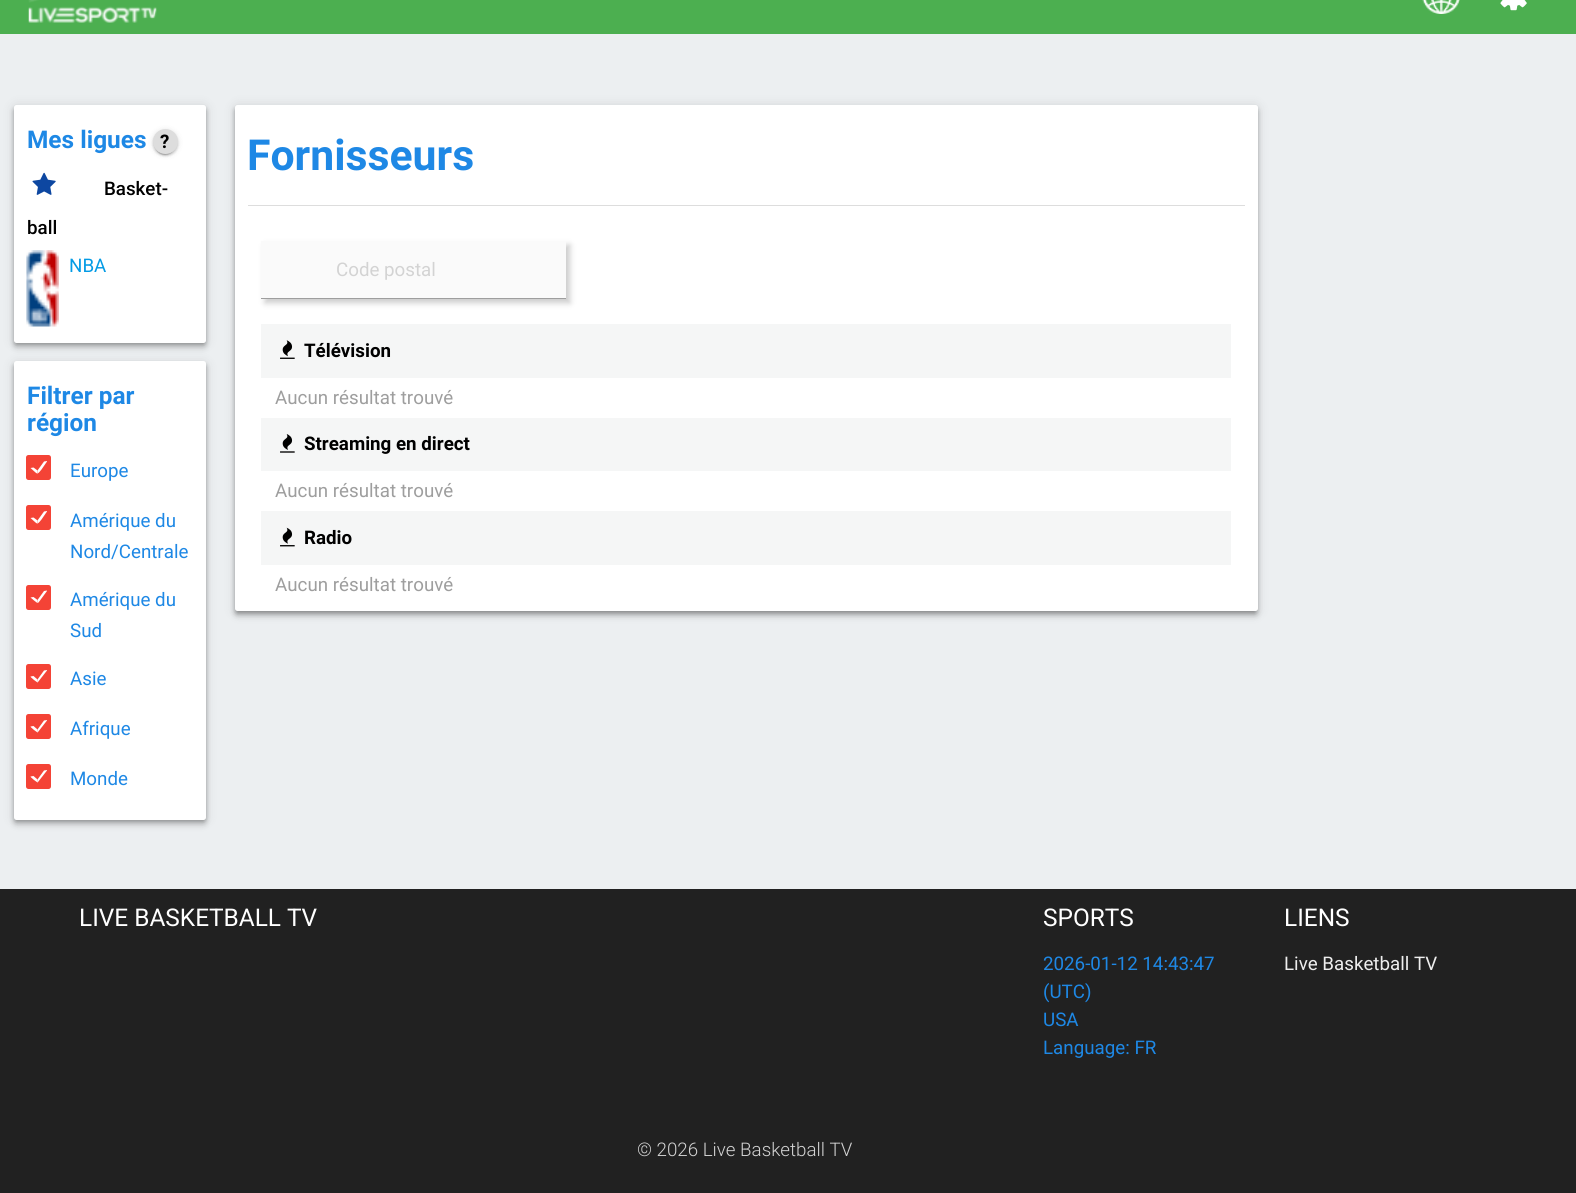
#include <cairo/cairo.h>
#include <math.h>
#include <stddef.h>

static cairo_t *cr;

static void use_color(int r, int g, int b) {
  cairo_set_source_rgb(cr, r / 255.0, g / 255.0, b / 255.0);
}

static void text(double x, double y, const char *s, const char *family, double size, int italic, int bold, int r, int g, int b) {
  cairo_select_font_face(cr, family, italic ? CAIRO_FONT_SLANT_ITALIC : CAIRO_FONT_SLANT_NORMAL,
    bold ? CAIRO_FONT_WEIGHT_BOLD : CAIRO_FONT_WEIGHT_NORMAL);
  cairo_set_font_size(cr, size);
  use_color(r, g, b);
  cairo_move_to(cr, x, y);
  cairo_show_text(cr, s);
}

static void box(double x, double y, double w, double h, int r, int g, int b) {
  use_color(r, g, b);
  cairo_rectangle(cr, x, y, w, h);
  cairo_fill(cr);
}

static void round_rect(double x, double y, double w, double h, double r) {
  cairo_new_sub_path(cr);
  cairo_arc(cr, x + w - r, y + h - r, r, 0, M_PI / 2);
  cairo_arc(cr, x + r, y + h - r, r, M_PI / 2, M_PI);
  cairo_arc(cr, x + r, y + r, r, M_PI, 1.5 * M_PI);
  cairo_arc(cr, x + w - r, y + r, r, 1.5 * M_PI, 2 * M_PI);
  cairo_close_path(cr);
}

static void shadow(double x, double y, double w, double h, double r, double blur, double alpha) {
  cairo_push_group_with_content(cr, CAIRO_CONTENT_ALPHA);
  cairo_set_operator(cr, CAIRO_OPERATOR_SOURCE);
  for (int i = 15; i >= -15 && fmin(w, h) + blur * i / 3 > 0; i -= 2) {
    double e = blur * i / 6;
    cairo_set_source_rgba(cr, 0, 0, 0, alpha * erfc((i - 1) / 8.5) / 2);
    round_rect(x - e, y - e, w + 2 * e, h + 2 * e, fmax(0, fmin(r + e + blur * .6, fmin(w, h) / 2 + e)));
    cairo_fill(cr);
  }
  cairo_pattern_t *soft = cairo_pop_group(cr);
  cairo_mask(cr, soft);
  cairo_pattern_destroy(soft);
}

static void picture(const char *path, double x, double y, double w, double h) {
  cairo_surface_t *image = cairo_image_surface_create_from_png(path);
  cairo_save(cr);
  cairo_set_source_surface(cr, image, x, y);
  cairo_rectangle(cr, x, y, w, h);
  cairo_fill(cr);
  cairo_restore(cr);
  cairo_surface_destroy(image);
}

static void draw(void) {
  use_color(236, 239, 241);
  cairo_paint(cr);
  box(0, 0, 1576, 34, 76, 175, 80);
  picture("img_01.png", 28, 0, 129, 23);
  picture("img_02.png", 1422, 0, 38, 14);
  picture("img_03.png", 1500, 0, 27, 11);
  use_color(0, 0, 0);
  shadow(15, 109, 190, 235, 1, 2.5, 0.3);
  shadow(14, 106, 192, 238, 2.5, 6, 0.12);
  shadow(14, 110, 192, 238, 2.5, 3, 0.14);
  use_color(255, 255, 255);
  round_rect(14, 105, 192, 238, 2.5);
  cairo_fill(cr);
  use_color(0, 0, 0);
  shadow(155, 135, 20, 20, 10, 0.5, 0.2);
  shadow(153, 130, 25, 25, 12.5, 3, 0.12);
  shadow(153, 131, 25, 25, 12.5, 1, 0.14);
  use_color(221, 221, 221);
  cairo_arc(cr, 165.5, 141.5, 12.5, 0, 2 * M_PI);
  cairo_fill(cr);
  picture("img_04.png", 32, 172, 24, 23);
  picture("img_05.png", 26, 250, 33, 77);
  use_color(0, 0, 0);
  shadow(15, 365, 190, 456, 1, 2.5, 0.3);
  shadow(14, 363, 192, 458, 2.5, 6, 0.12);
  shadow(14, 366, 192, 459, 2.5, 3, 0.14);
  use_color(255, 255, 255);
  round_rect(14, 361, 192, 459, 2.5);
  cairo_fill(cr);
  use_color(244, 67, 54);
  round_rect(27.5, 456.5, 22, 22, 1);
  cairo_fill_preserve(cr);
  cairo_set_line_width(cr, 3);
  cairo_stroke(cr);
  use_color(255, 255, 255);
  cairo_new_path(cr);
  cairo_move_to(cr, 41.5, 469.5);
  cairo_curve_to(cr, 40.5, 470.5, 39, 473, 37.5, 473.5);
  cairo_line_to(cr, 37.5, 470.5);
  cairo_line_to(cr, 44, 461.5);
  cairo_line_to(cr, 47, 461);
  cairo_line_to(cr, 47, 461.5);
  cairo_close_path(cr);
  cairo_fill(cr);
  use_color(244, 67, 54);
  round_rect(27.5, 506.5, 22, 22, 1);
  cairo_fill_preserve(cr);
  cairo_stroke(cr);
  use_color(255, 255, 255);
  cairo_new_path(cr);
  cairo_move_to(cr, 35.5, 472.5);
  cairo_line_to(cr, 30.5, 468);
  cairo_line_to(cr, 33.5, 467.5);
  cairo_line_to(cr, 37.5, 470.5);
  cairo_line_to(cr, 37.5, 473.5);
  cairo_line_to(cr, 37, 473.5);
  cairo_close_path(cr);
  cairo_move_to(cr, 41.5, 519.5);
  cairo_curve_to(cr, 40.5, 520.5, 39, 523, 37.5, 523.5);
  cairo_line_to(cr, 37.5, 520.5);
  cairo_line_to(cr, 44, 511.5);
  cairo_line_to(cr, 47, 511);
  cairo_line_to(cr, 47, 511.5);
  cairo_close_path(cr);
  cairo_fill(cr);
  cairo_new_path(cr);
  cairo_move_to(cr, 35.5, 522.5);
  cairo_line_to(cr, 30.5, 518);
  cairo_line_to(cr, 33.5, 517.5);
  cairo_line_to(cr, 37.5, 520.5);
  cairo_line_to(cr, 37.5, 523.5);
  cairo_line_to(cr, 37, 523.5);
  cairo_close_path(cr);
  cairo_fill(cr);
  use_color(244, 67, 54);
  round_rect(27.5, 586.5, 22, 22, 1);
  cairo_fill_preserve(cr);
  cairo_stroke(cr);
  use_color(255, 255, 255);
  cairo_new_path(cr);
  cairo_move_to(cr, 38.5, 602.5);
  cairo_line_to(cr, 37.5, 603);
  cairo_line_to(cr, 37.5, 600);
  cairo_line_to(cr, 44, 591);
  cairo_line_to(cr, 47, 590.5);
  cairo_line_to(cr, 47, 591);
  cairo_close_path(cr);
  cairo_fill(cr);
  cairo_new_path(cr);
  cairo_move_to(cr, 37.5, 603);
  cairo_curve_to(cr, 37, 603, 31, 598, 30.5, 597.5);
  cairo_line_to(cr, 33.5, 597);
  cairo_line_to(cr, 37.5, 600);
  cairo_close_path(cr);
  cairo_fill(cr);
  use_color(244, 67, 54);
  round_rect(27.5, 665.5, 22, 22, 1);
  cairo_fill_preserve(cr);
  cairo_stroke(cr);
  use_color(255, 255, 255);
  cairo_new_path(cr);
  cairo_move_to(cr, 38, 682);
  cairo_line_to(cr, 38, 682.5);
  cairo_line_to(cr, 37.5, 679.5);
  cairo_line_to(cr, 44, 670.5);
  cairo_line_to(cr, 47, 670);
  cairo_line_to(cr, 47, 670.5);
  cairo_close_path(cr);
  cairo_fill(cr);
  use_color(244, 67, 54);
  round_rect(27.5, 715.5, 22, 22, 1);
  cairo_fill_preserve(cr);
  cairo_stroke(cr);
  use_color(255, 255, 255);
  cairo_new_path(cr);
  cairo_move_to(cr, 38, 682.5);
  cairo_curve_to(cr, 37, 682.5, 30.5, 677.5, 30.5, 676.5);
  cairo_line_to(cr, 33.5, 676);
  cairo_line_to(cr, 37.5, 679.5);
  cairo_close_path(cr);
  cairo_move_to(cr, 38, 732);
  cairo_line_to(cr, 38, 732.5);
  cairo_line_to(cr, 37.5, 729.5);
  cairo_line_to(cr, 44, 720.5);
  cairo_line_to(cr, 47, 720);
  cairo_line_to(cr, 47, 720.5);
  cairo_close_path(cr);
  cairo_fill(cr);
  use_color(244, 67, 54);
  round_rect(27.5, 765.5, 22, 22, 1);
  cairo_fill_preserve(cr);
  cairo_stroke(cr);
  use_color(255, 255, 255);
  cairo_new_path(cr);
  cairo_move_to(cr, 38, 732.5);
  cairo_curve_to(cr, 37, 732.5, 30.5, 727.5, 30.5, 726.5);
  cairo_line_to(cr, 33.5, 726);
  cairo_line_to(cr, 37.5, 729.5);
  cairo_close_path(cr);
  cairo_move_to(cr, 38, 782);
  cairo_line_to(cr, 38, 782.5);
  cairo_line_to(cr, 37.5, 779.5);
  cairo_line_to(cr, 44, 770.5);
  cairo_line_to(cr, 47, 770);
  cairo_line_to(cr, 47, 770.5);
  cairo_close_path(cr);
  cairo_fill(cr);
  cairo_new_path(cr);
  cairo_move_to(cr, 38, 782.5);
  cairo_curve_to(cr, 37, 782.5, 30.5, 777.5, 30.5, 776.5);
  cairo_line_to(cr, 33.5, 776);
  cairo_line_to(cr, 37.5, 779.5);
  cairo_close_path(cr);
  cairo_fill(cr);
  use_color(0, 0, 0);
  shadow(236, 109, 1020, 504, 1, 2.5, 0.3);
  shadow(235, 106, 1023, 507, 2.5, 6, 0.12);
  shadow(235, 110, 1023, 506, 2.5, 3, 0.14);
  use_color(255, 255, 255);
  round_rect(235, 105, 1023, 506, 2.5);
  cairo_fill(cr);
  box(248, 205, 997, 1, 221, 221, 221);
  use_color(204, 204, 204);
  shadow(265, 245, 305, 58, 0, 3, 1);
  box(261, 241, 305, 57, 250, 250, 250);
  box(261, 298, 305, 1, 158, 158, 158);
  box(261, 324, 970, 54, 245, 246, 246);
  picture("img_06.png", 280, 340, 15, 19);
  box(261, 418, 970, 53, 245, 246, 246);
  picture("img_07.png", 280, 434, 15, 19);
  box(261, 511, 970, 54, 245, 246, 246);
  picture("img_08.png", 280, 527, 15, 20);
  box(0, 889, 1576, 304, 33, 33, 33);
  text(27, 148, "Mes ligues", "Roboto", 24.4, 0, 1, 30, 136, 229);
  text(160, 148, "?", "Roboto", 18.75, 0, 1, 0, 0, 0);
  text(104, 195, "Basket-", "Roboto Medium", 18.75, 0, 0, 0, 0, 0);
  text(27, 234, "ball", "Roboto Medium", 18.75, 0, 0, 0, 0, 0);
  text(69, 272, "NBA", "Roboto", 18.75, 0, 0, 3, 155, 229);
  text(27, 404, "Filtrer par", "Roboto", 24.4, 0, 1, 30, 136, 229);
  text(27, 431, "région", "Roboto", 24.4, 0, 1, 30, 136, 229);
  text(70, 477, "Europe", "Roboto", 18.75, 0, 0, 30, 136, 229);
  text(70, 527, "Amérique du", "Roboto", 18.75, 0, 0, 30, 136, 229);
  text(70, 558, "Nord/Centrale", "Roboto", 18.75, 0, 0, 30, 136, 229);
  text(70, 606, "Amérique du", "Roboto", 18.75, 0, 0, 30, 136, 229);
  text(70, 637, "Sud", "Roboto", 18.75, 0, 0, 30, 136, 229);
  text(70, 685, "Asie", "Roboto", 18.75, 0, 0, 30, 136, 229);
  text(70, 735, "Afrique", "Roboto", 18.75, 0, 0, 30, 136, 229);
  text(70, 785, "Monde", "Roboto", 18.75, 0, 0, 30, 136, 229);
  text(247, 170, "Fornisseurs", "Roboto", 42.75, 0, 1, 30, 136, 229);
  text(336, 276, "Code postal", "Roboto", 18.75, 0, 0, 211, 211, 211);
  text(304, 357, "Télévision", "Roboto", 18.75, 0, 1, 0, 0, 0);
  text(275, 404, "Aucun résultat trouvé", "Roboto", 18.75, 0, 0, 158, 158, 158);
  text(304, 450, "Streaming en direct", "Roboto", 18.75, 0, 1, 0, 0, 0);
  text(275, 497, "Aucun résultat trouvé", "Roboto", 18.75, 0, 0, 158, 158, 158);
  text(304, 544, "Radio", "Roboto", 18.75, 0, 1, 0, 0, 0);
  text(275, 591, "Aucun résultat trouvé", "Roboto", 18.75, 0, 0, 158, 158, 158);
  text(79, 926, "LIVE BASKETBALL TV", "Roboto", 24.4, 0, 0, 255, 255, 255);
  text(1043, 926, "SPORTS", "Roboto", 24.4, 0, 0, 255, 255, 255);
  text(1043, 970, "2026-01-12 14:43:47", "Roboto", 18.75, 0, 0, 30, 136, 229);
  text(1043, 998, "(UTC)", "Roboto", 18.75, 0, 0, 30, 136, 229);
  text(1043, 1026, "USA", "Roboto", 18.75, 0, 0, 30, 136, 229);
  text(1043, 1054, "Language: FR", "Roboto", 18.75, 0, 0, 30, 136, 229);
  text(1284, 926, "LIENS", "Roboto", 24.4, 0, 0, 255, 255, 255);
  text(1284, 970, "Live Basketball TV", "Roboto", 18.75, 0, 0, 238, 238, 238);
  text(637, 1156, "© 2026 Live Basketball TV", "Roboto Light", 18.75, 0, 0, 211, 211, 211);
}

int main(void) {
  cairo_surface_t *surface = cairo_image_surface_create(CAIRO_FORMAT_RGB24, 1576, 1193);
  cr = cairo_create(surface);
  cairo_font_options_t *options = cairo_font_options_create();
  cairo_font_options_set_hint_metrics(options, CAIRO_HINT_METRICS_OFF);
  cairo_font_options_set_hint_style(options, CAIRO_HINT_STYLE_NONE);
  cairo_set_font_options(cr, options);
  cairo_set_miter_limit(cr, 4);
  draw();
  cairo_surface_write_to_png(surface, "out.png");
  cairo_font_options_destroy(options);
  cairo_destroy(cr);
  cairo_surface_destroy(surface);
  return 0;
}
